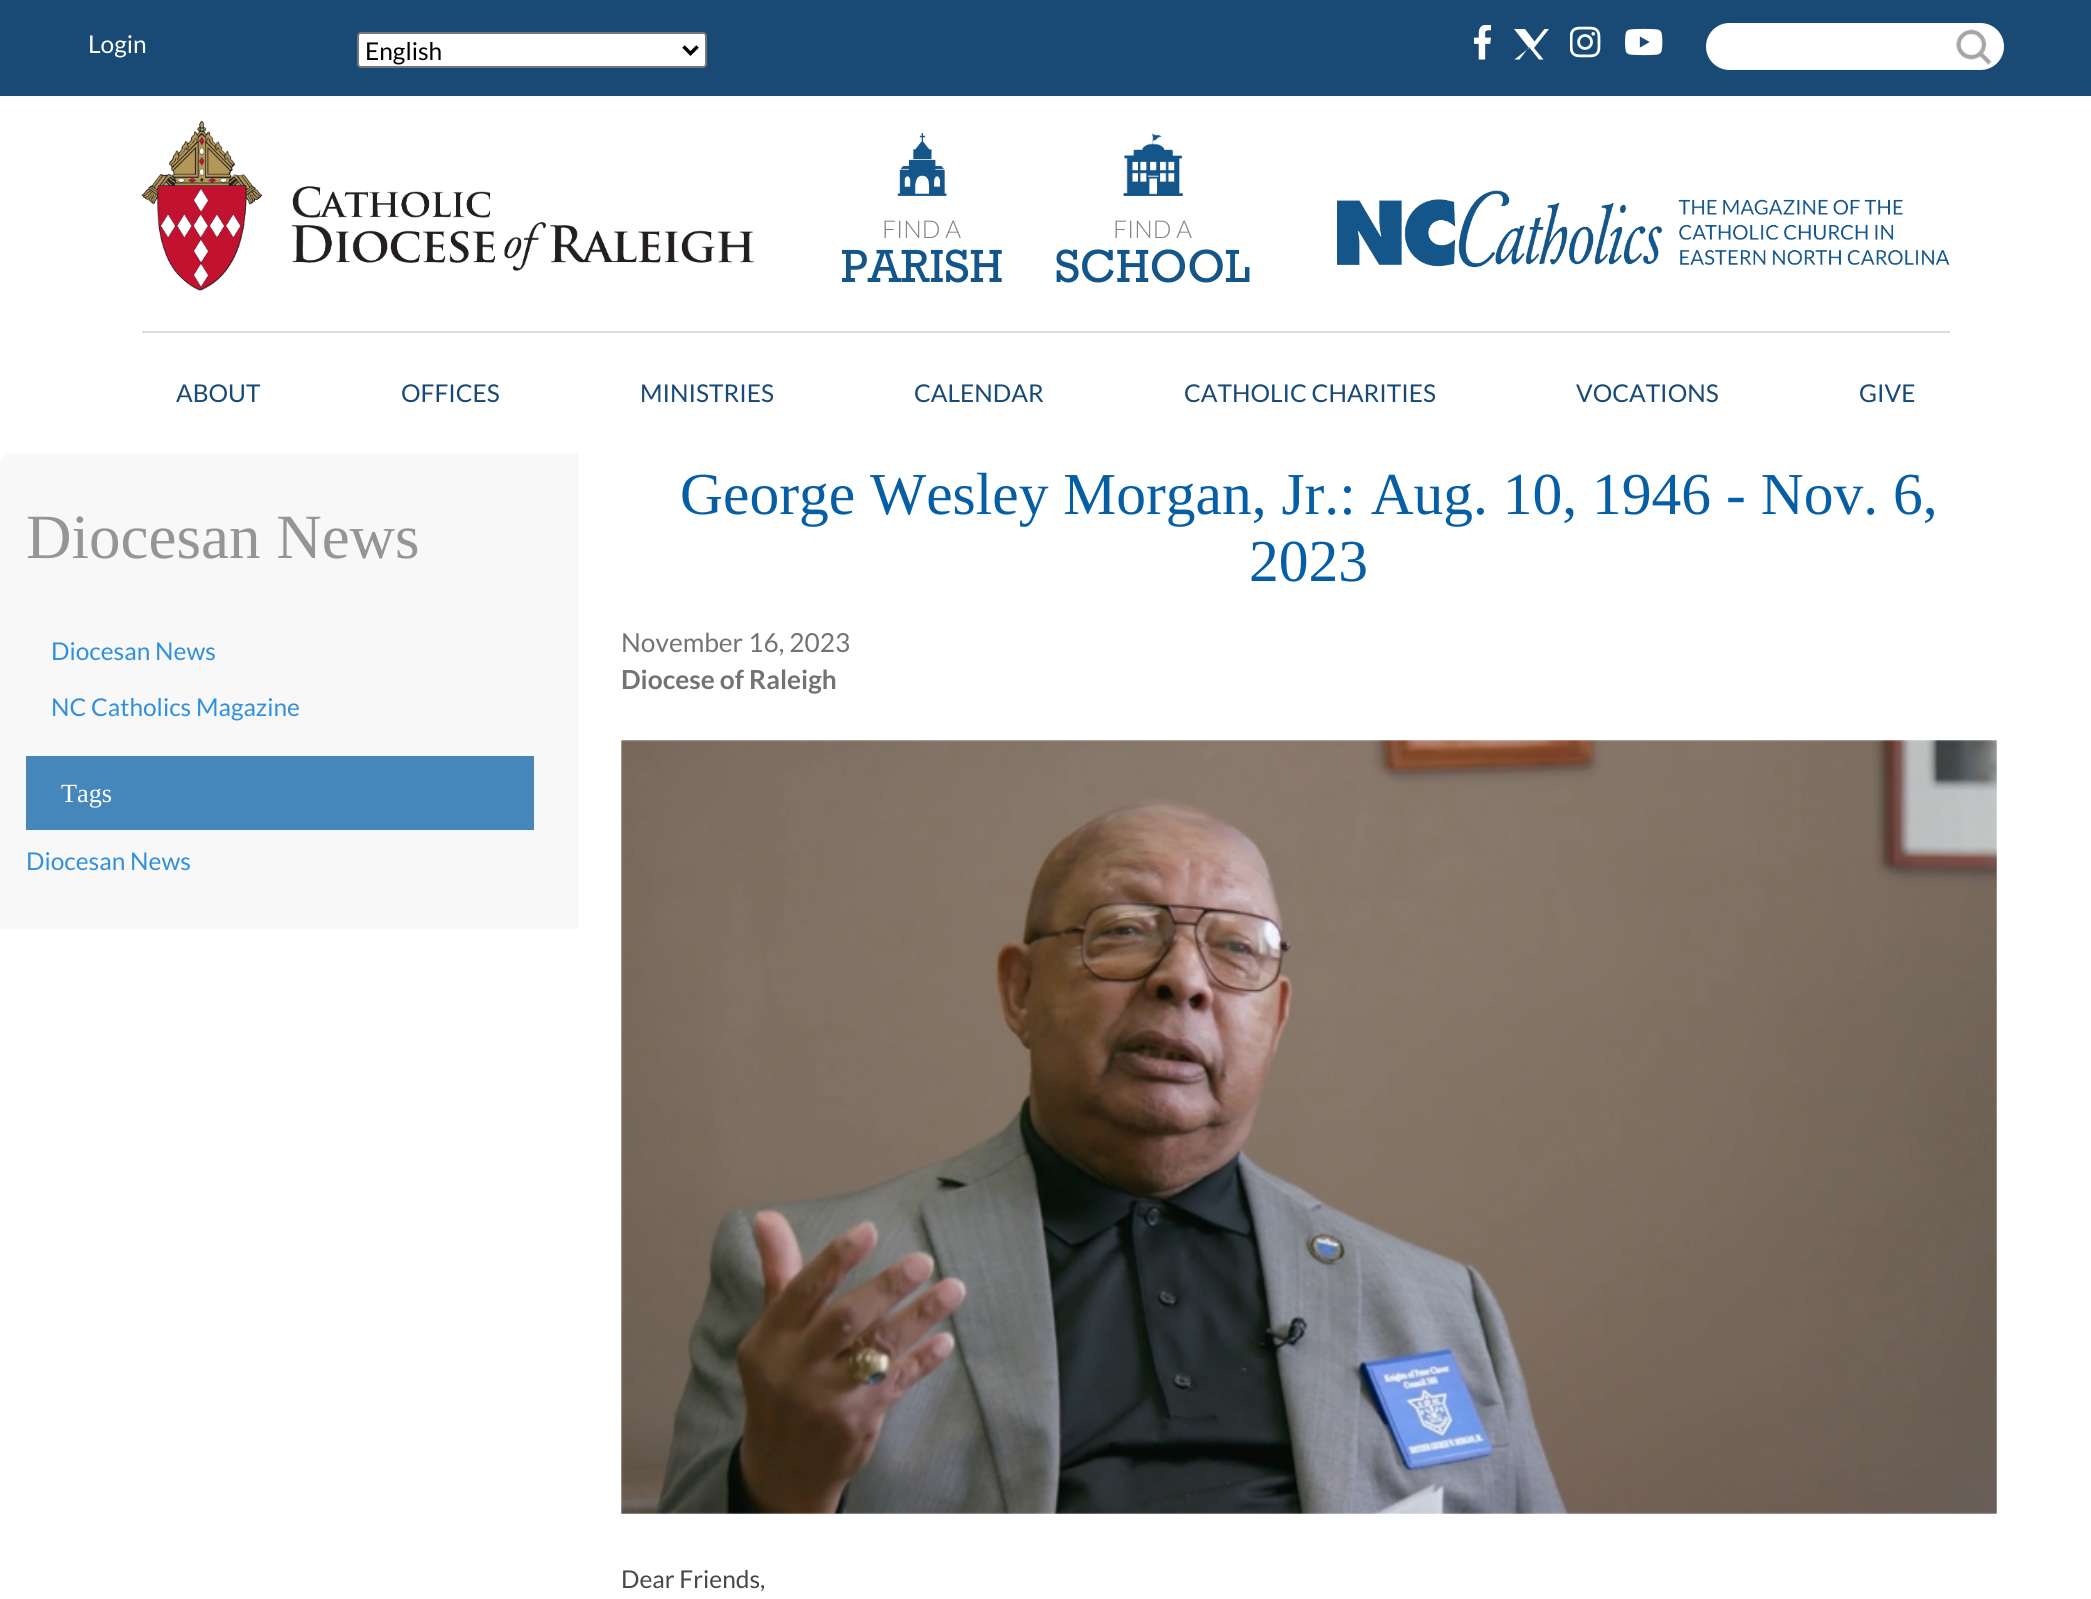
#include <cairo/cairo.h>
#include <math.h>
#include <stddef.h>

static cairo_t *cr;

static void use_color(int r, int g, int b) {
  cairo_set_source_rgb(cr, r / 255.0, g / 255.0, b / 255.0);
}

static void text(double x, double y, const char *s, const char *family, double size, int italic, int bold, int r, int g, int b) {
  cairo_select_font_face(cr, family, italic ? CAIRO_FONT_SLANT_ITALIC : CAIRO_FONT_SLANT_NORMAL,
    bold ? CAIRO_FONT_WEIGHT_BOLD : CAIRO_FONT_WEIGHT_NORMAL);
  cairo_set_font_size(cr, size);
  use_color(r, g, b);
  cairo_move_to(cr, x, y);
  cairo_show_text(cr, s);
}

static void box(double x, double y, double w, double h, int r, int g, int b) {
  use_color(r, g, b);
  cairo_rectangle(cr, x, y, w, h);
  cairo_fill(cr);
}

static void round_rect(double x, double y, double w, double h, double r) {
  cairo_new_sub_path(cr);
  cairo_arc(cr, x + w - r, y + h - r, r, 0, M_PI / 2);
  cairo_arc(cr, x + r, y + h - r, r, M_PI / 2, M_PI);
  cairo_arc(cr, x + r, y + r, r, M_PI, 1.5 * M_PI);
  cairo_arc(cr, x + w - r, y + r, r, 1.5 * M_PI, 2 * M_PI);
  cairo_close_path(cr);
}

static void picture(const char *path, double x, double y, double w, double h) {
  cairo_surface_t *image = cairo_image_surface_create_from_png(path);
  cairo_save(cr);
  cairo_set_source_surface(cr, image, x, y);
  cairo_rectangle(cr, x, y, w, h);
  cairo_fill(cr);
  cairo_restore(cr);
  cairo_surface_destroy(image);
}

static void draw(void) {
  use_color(255, 255, 255);
  cairo_paint(cr);
  box(0, 0, 2091, 96, 25, 74, 117);
  use_color(255, 255, 255);
  round_rect(358, 33, 348, 34, 3);
  cairo_fill_preserve(cr);
  use_color(118, 118, 118);
  cairo_stroke(cr);
  cairo_new_path(cr);
  cairo_move_to(cr, 683.5, 46.5);
  cairo_line_to(cr, 690.5, 53.5);
  cairo_line_to(cr, 697.5, 46.5);
  use_color(0, 0, 0);
  cairo_set_line_width(cr, 3.5);
  cairo_stroke(cr);
  picture("img_01.png", 1474, 25, 17, 35);
  use_color(255, 255, 255);
  cairo_new_path(cr);
  cairo_move_to(cr, 1534, 48);
  cairo_line_to(cr, 1549, 29);
  cairo_line_to(cr, 1544.5, 29);
  cairo_line_to(cr, 1534.5, 41.5);
  cairo_line_to(cr, 1525, 29);
  cairo_line_to(cr, 1514, 29);
  cairo_line_to(cr, 1529, 48);
  cairo_line_to(cr, 1514.5, 59.5);
  cairo_line_to(cr, 1519.5, 59.5);
  cairo_line_to(cr, 1529, 47);
  cairo_line_to(cr, 1539, 59.5);
  cairo_line_to(cr, 1543.5, 59.5);
  cairo_close_path(cr);
  cairo_fill(cr);
  picture("img_02.png", 1570, 26, 31, 32);
  picture("img_03.png", 1625, 28, 38, 28);
  round_rect(1706, 23, 298, 47, 23.5);
  cairo_fill(cr);
  picture("img_04.png", 1956, 29, 36, 36);
  picture("img_05.png", 141, 120, 614, 171);
  picture("img_06.png", 897, 133, 50, 63);
  picture("img_07.png", 1123, 133, 60, 63);
  picture("img_08.png", 1337, 190, 613, 78);
  box(142, 331, 1808, 2, 221, 221, 221);
  use_color(248, 248, 248);
  cairo_new_path(cr);
  cairo_move_to(cr, 12, 453);
  cairo_line_to(cr, 578, 453);
  cairo_line_to(cr, 578, 929);
  cairo_line_to(cr, 0, 929);
  cairo_line_to(cr, 0, 465);
  cairo_curve_to(cr, 0, 458.5, 5.5, 453, 12, 453);
  cairo_close_path(cr);
  cairo_fill(cr);
  box(26, 756, 508, 74, 69, 135, 187);
  picture("img_09.png", 621, 740, 1376, 774);
  text(88, 53, "Login", "Lato", 24.5, 0, 0, 255, 255, 255);
  text(365, 60, "English", "Lato", 24.5, 0, 0, 0, 0, 0);
  text(882, 238, "FIND A", "Lato Light", 24.5, 0, 0, 128, 128, 128);
  text(841, 282, "PARISH", "Rockwell", 47.25, 0, 0, 20, 86, 138);
  text(1113, 238, "FIND A", "Lato Light", 24.5, 0, 0, 128, 128, 128);
  text(1055, 282, "SCHOOL", "Rockwell", 47.25, 0, 0, 20, 86, 138);
  text(176, 402, "ABOUT", "Lato", 24.5, 0, 0, 25, 74, 117);
  text(401, 402, "OFFICES", "Lato", 24.5, 0, 0, 25, 74, 117);
  text(640, 402, "MINISTRIES", "Lato", 24.5, 0, 0, 25, 74, 117);
  text(914, 402, "CALENDAR", "Lato", 24.5, 0, 0, 25, 74, 117);
  text(1184, 402, "CATHOLIC CHARITIES", "Lato", 24.5, 0, 0, 25, 74, 117);
  text(1576, 402, "VOCATIONS", "Lato", 24.5, 0, 0, 25, 74, 117);
  text(1859, 402, "GIVE", "Lato", 24.5, 0, 0, 25, 74, 117);
  text(26, 558, "Diocesan News", "Liberation Serif", 63, 0, 0, 149, 149, 150);
  text(51, 660, "Diocesan News", "Lato", 24.5, 0, 0, 49, 144, 220);
  text(51, 716, "NC Catholics Magazine", "Lato", 24.5, 0, 0, 49, 144, 220);
  text(61, 802, "Tags", "Liberation Serif", 26.25, 0, 0, 255, 255, 255);
  text(26, 870, "Diocesan News", "Lato", 24.5, 0, 0, 49, 144, 220);
  text(680, 514, "George Wesley Morgan, Jr.: Aug. 10, 1946 - Nov. 6,", "Liberation Serif", 59.5, 0, 0, 6, 94, 164);
  text(1249, 581, "2023", "Liberation Serif", 59.5, 0, 0, 6, 94, 164);
  text(621, 652, "November 16, 2023", "Lato", 26.25, 0, 0, 115, 115, 115);
  text(621, 689, "Diocese of Raleigh", "Lato", 26.25, 0, 1, 115, 115, 115);
  text(621, 1588, "Dear Friends,", "Lato", 24.5, 0, 0, 67, 72, 73);
}

int main(void) {
  cairo_surface_t *surface = cairo_image_surface_create(CAIRO_FORMAT_RGB24, 2091, 1599);
  cr = cairo_create(surface);
  cairo_font_options_t *options = cairo_font_options_create();
  cairo_font_options_set_hint_metrics(options, CAIRO_HINT_METRICS_OFF);
  cairo_font_options_set_hint_style(options, CAIRO_HINT_STYLE_NONE);
  cairo_set_font_options(cr, options);
  cairo_set_miter_limit(cr, 4);
  draw();
  cairo_surface_write_to_png(surface, "out.png");
  cairo_font_options_destroy(options);
  cairo_destroy(cr);
  cairo_surface_destroy(surface);
  return 0;
}
